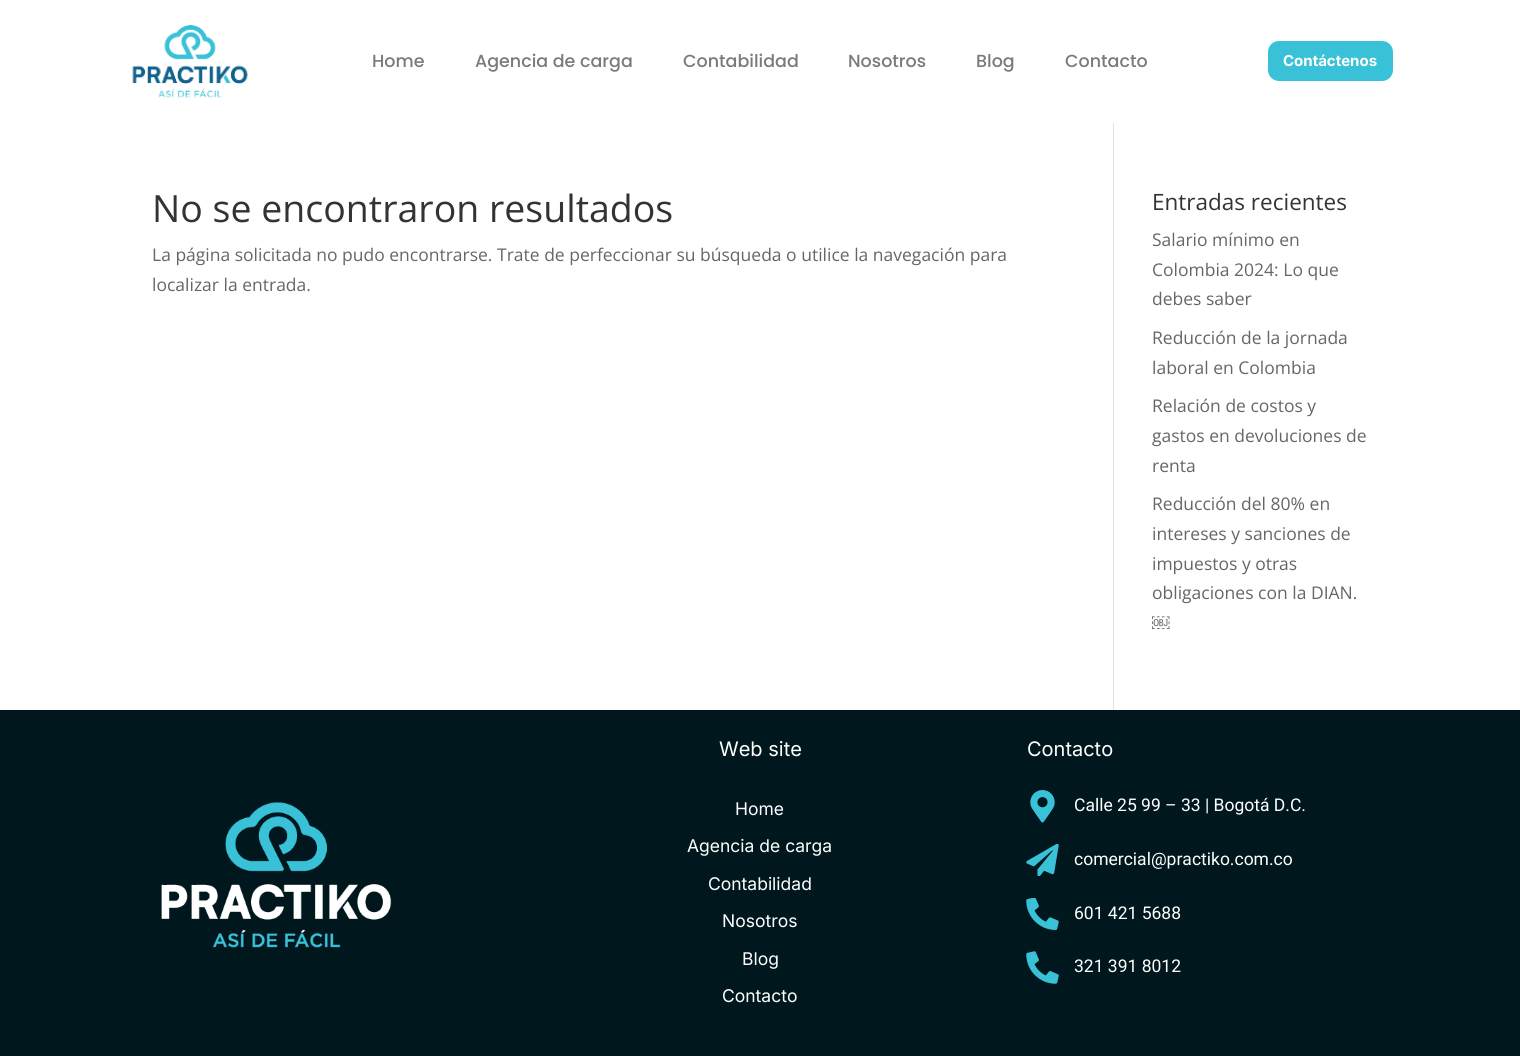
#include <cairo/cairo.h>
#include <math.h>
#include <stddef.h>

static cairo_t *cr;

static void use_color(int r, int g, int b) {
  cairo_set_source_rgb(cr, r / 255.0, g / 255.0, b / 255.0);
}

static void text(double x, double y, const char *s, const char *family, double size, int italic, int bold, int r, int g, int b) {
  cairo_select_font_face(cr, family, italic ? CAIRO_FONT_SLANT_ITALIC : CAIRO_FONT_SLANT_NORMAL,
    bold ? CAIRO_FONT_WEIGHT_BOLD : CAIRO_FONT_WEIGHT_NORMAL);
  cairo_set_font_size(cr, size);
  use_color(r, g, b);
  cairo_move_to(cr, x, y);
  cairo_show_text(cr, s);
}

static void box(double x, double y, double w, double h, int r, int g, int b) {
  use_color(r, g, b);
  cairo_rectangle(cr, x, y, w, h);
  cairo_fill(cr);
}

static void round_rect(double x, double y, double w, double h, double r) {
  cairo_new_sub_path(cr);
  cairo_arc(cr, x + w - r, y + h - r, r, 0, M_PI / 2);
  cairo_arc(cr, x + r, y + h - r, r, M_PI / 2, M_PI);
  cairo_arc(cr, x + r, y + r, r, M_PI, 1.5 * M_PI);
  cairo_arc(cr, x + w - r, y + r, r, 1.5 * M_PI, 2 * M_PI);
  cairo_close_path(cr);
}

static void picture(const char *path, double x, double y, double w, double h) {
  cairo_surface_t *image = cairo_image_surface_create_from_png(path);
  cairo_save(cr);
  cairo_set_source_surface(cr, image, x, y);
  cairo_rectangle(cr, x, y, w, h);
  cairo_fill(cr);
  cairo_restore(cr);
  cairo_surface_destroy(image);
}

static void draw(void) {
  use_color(255, 255, 255);
  cairo_paint(cr);
  box(1113, 118, 1, 592, 226, 226, 226);
  box(1113, 118, 1, 5, 255, 255, 255);
  picture("img_01.png", 132, 25, 116, 73);
  use_color(57, 193, 216);
  round_rect(1269.5, 42.5, 122, 37, 9.5);
  cairo_fill_preserve(cr);
  cairo_set_line_width(cr, 3);
  cairo_stroke(cr);
  box(0, 710, 1520, 346, 0, 23, 30);
  picture("img_02.png", 161, 802, 231, 146);
  picture("img_03.png", 1030, 790, 25, 33);
  picture("img_04.png", 1026, 844, 33, 32);
  picture("img_05.png", 1026, 898, 33, 32);
  picture("img_06.png", 1026, 951, 33, 33);
  text(372, 67, "Home", "Poppins Medium", 17.5, 0, 0, 122, 122, 122);
  text(475, 67, "Agencia de carga", "Poppins Medium", 17.5, 0, 0, 122, 122, 122);
  text(683, 67, "Contabilidad", "Poppins Medium", 17.5, 0, 0, 122, 122, 122);
  text(848, 67, "Nosotros", "Poppins Medium", 17.5, 0, 0, 122, 122, 122);
  text(976, 67, "Blog", "Poppins Medium", 17.5, 0, 0, 122, 122, 122);
  text(1065, 67, "Contacto", "Poppins Medium", 17.5, 0, 0, 122, 122, 122);
  text(1283, 66, "Contáctenos", "Inter", 15, 0, 1, 255, 255, 255);
  text(152, 222, "No se encontraron resultados", "Open Sans", 37.5, 0, 0, 51, 51, 51);
  text(152, 261, "La página solicitada no pudo encontrarse. Trate de perfeccionar su búsqueda o utilice la navegación para", "Open Sans", 17.5, 0, 0, 102, 102, 102);
  text(152, 291, "localizar la entrada.", "Open Sans", 17.5, 0, 0, 102, 102, 102);
  text(1152, 210, "Entradas recientes", "Open Sans", 22.5, 0, 0, 51, 51, 51);
  text(1152, 246, "Salario mínimo en", "Open Sans", 17.5, 0, 0, 102, 102, 102);
  text(1152, 276, "Colombia 2024: Lo que", "Open Sans", 17.5, 0, 0, 102, 102, 102);
  text(1152, 305, "debes saber", "Open Sans", 17.5, 0, 0, 102, 102, 102);
  text(1152, 344, "Reducción de la jornada", "Open Sans", 17.5, 0, 0, 102, 102, 102);
  text(1152, 374, "laboral en Colombia", "Open Sans", 17.5, 0, 0, 102, 102, 102);
  text(1152, 412, "Relación de costos y", "Open Sans", 17.5, 0, 0, 102, 102, 102);
  text(1152, 442, "gastos en devoluciones de", "Open Sans", 17.5, 0, 0, 102, 102, 102);
  text(1152, 472, "renta", "Open Sans", 17.5, 0, 0, 102, 102, 102);
  text(1152, 510, "Reducción del 80% en", "Open Sans", 17.5, 0, 0, 102, 102, 102);
  text(1152, 540, "intereses y sanciones de", "Open Sans", 17.5, 0, 0, 102, 102, 102);
  text(1152, 570, "impuestos y otras", "Open Sans", 17.5, 0, 0, 102, 102, 102);
  text(1152, 599, "obligaciones con la DIAN.", "Open Sans", 17.5, 0, 0, 102, 102, 102);
  text(1152, 629, "￼", "Liberation Sans", 17.5, 0, 0, 102, 102, 102);
  text(719, 756, "Web site", "Inter", 20, 0, 0, 255, 255, 255);
  text(735, 815, "Home", "Inter", 17.5, 0, 0, 255, 255, 255);
  text(687, 852, "Agencia de carga", "Inter", 17.5, 0, 0, 255, 255, 255);
  text(708, 890, "Contabilidad", "Inter", 17.5, 0, 0, 255, 255, 255);
  text(722, 927, "Nosotros", "Inter", 17.5, 0, 0, 255, 255, 255);
  text(742, 965, "Blog", "Inter", 17.5, 0, 0, 255, 255, 255);
  text(722, 1002, "Contacto", "Inter", 17.5, 0, 0, 255, 255, 255);
  text(1027, 756, "Contacto", "Inter", 20, 0, 0, 255, 255, 255);
  text(1074, 811, "Calle 25 99 – 33 | Bogotá D.C.", "Roboto", 17.5, 0, 0, 255, 255, 255);
  text(1074, 865, "comercial@practiko.com.co", "Roboto", 17.5, 0, 0, 255, 255, 255);
  text(1074, 919, "601 421 5688", "Roboto", 17.5, 0, 0, 255, 255, 255);
  text(1074, 972, "321 391 8012", "Roboto", 17.5, 0, 0, 255, 255, 255);
}

int main(void) {
  cairo_surface_t *surface = cairo_image_surface_create(CAIRO_FORMAT_RGB24, 1520, 1056);
  cr = cairo_create(surface);
  cairo_font_options_t *options = cairo_font_options_create();
  cairo_font_options_set_hint_metrics(options, CAIRO_HINT_METRICS_OFF);
  cairo_font_options_set_hint_style(options, CAIRO_HINT_STYLE_NONE);
  cairo_set_font_options(cr, options);
  cairo_set_miter_limit(cr, 4);
  draw();
  cairo_surface_write_to_png(surface, "out.png");
  cairo_font_options_destroy(options);
  cairo_destroy(cr);
  cairo_surface_destroy(surface);
  return 0;
}
